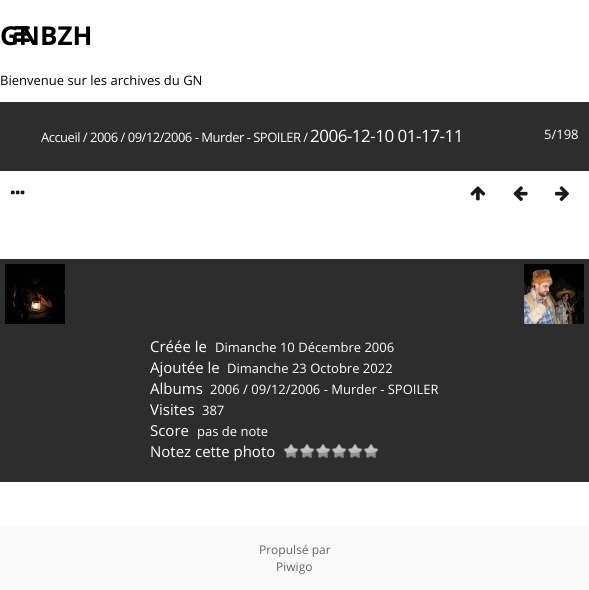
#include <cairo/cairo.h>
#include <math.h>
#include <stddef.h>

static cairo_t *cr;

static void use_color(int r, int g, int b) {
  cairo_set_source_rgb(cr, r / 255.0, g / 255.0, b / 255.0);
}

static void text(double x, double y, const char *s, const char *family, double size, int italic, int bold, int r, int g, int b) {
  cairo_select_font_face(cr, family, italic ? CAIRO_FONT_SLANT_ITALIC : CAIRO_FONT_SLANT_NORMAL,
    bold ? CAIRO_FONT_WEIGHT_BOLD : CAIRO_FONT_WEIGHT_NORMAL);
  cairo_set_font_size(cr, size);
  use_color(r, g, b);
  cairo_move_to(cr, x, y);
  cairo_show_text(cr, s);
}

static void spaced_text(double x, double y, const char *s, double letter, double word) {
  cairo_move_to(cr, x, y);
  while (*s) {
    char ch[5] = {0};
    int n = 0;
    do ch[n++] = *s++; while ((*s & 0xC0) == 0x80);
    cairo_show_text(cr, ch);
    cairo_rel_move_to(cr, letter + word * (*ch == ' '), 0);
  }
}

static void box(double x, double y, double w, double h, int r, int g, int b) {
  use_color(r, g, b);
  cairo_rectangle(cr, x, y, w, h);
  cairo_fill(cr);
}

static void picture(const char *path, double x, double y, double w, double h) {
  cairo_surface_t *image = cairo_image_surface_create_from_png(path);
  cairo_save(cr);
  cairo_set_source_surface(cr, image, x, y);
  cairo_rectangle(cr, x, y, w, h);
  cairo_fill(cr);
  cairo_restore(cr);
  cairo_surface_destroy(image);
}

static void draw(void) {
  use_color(255, 255, 255);
  cairo_paint(cr);
  box(0, 102, 589, 69, 45, 45, 45);
  picture("img_02.png", 11, 190, 14, 5);
  picture("img_03.png", 470, 186, 16, 15);
  picture("img_04.png", 513, 186, 15, 15);
  picture("img_05.png", 555, 186, 14, 15);
  box(0, 259, 589, 223, 45, 45, 45);
  picture("img_06.png", 5, 264, 60, 60);
  picture("img_07.png", 524, 264, 60, 60);
  picture("img_08.png", 283, 444, 16, 14);
  picture("img_08.png", 299, 444, 16, 14);
  picture("img_08.png", 315, 444, 16, 14);
  picture("img_08.png", 331, 444, 16, 14);
  picture("img_08.png", 347, 444, 16, 14);
  picture("img_08.png", 363, 444, 16, 14);
  box(0, 526, 589, 64, 249, 249, 249);
  text(0, 45, "GNBZH", "Open Sans", 26, 0, 1, 0, 0, 0);
  text(0, 85, "Bienvenue sur les archives du GN", "Open Sans", 13, 0, 0, 0, 0, 0);
  picture("img_01.png", 14, 26, 16, 16);
  use_color(255, 255, 255);
  spaced_text(41, 142, "Accueil / 2006 / 09/12/2006 - Murder - SPOILER /", -0.5, 0);
  cairo_set_font_size(cr, 17);
  spaced_text(310, 142, "2006-12-10 01-17-11", -0.5, 0);
  text(544, 139, "5/198", "Open Sans", 13, 0, 0, 255, 255, 255);
  text(150, 352, "Créée le", "Open Sans", 15, 0, 0, 255, 255, 255);
  text(215, 352, "Dimanche 10 Décembre 2006", "Open Sans", 13, 0, 0, 255, 255, 255);
  text(150, 373, "Ajoutée le", "Open Sans", 15, 0, 0, 255, 255, 255);
  text(227, 373, "Dimanche 23 Octobre 2022", "Open Sans", 13, 0, 0, 255, 255, 255);
  text(150, 394, "Albums", "Open Sans", 15, 0, 0, 255, 255, 255);
  text(210, 394, "2006 / 09/12/2006 - Murder - SPOILER", "Open Sans", 13, 0, 0, 255, 255, 255);
  text(150, 415, "Visites", "Open Sans", 15, 0, 0, 255, 255, 255);
  text(202, 415, "387", "Open Sans", 13, 0, 0, 255, 255, 255);
  text(150, 436, "Score", "Open Sans", 15, 0, 0, 255, 255, 255);
  text(197, 436, "pas de note", "Open Sans", 13, 0, 0, 255, 255, 255);
  text(150, 457, "Notez cette photo", "Open Sans", 15, 0, 0, 255, 255, 255);
  text(259, 554, "Propulsé par", "Open Sans", 12, 0, 0, 102, 102, 102);
  text(276, 571, "Piwigo", "Open Sans", 12, 0, 0, 102, 102, 102);
}

int main(void) {
  cairo_surface_t *surface = cairo_image_surface_create(CAIRO_FORMAT_RGB24, 589, 590);
  cr = cairo_create(surface);
  cairo_font_options_t *options = cairo_font_options_create();
  cairo_font_options_set_hint_metrics(options, CAIRO_HINT_METRICS_OFF);
  cairo_font_options_set_hint_style(options, CAIRO_HINT_STYLE_NONE);
  cairo_set_font_options(cr, options);
  cairo_set_miter_limit(cr, 4);
  draw();
  cairo_surface_write_to_png(surface, "out.png");
  cairo_font_options_destroy(options);
  cairo_destroy(cr);
  cairo_surface_destroy(surface);
  return 0;
}
